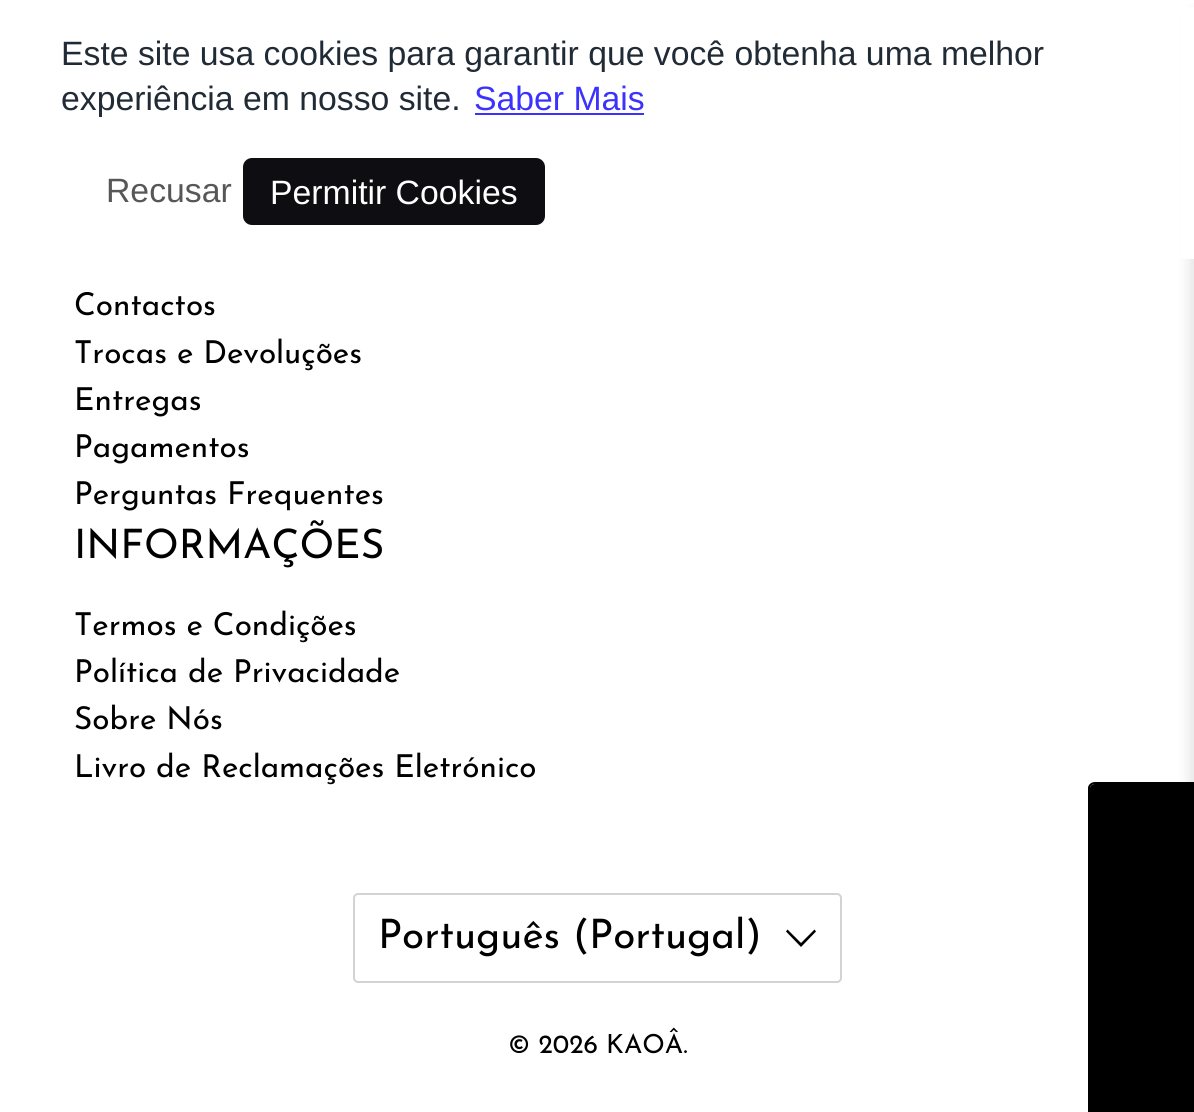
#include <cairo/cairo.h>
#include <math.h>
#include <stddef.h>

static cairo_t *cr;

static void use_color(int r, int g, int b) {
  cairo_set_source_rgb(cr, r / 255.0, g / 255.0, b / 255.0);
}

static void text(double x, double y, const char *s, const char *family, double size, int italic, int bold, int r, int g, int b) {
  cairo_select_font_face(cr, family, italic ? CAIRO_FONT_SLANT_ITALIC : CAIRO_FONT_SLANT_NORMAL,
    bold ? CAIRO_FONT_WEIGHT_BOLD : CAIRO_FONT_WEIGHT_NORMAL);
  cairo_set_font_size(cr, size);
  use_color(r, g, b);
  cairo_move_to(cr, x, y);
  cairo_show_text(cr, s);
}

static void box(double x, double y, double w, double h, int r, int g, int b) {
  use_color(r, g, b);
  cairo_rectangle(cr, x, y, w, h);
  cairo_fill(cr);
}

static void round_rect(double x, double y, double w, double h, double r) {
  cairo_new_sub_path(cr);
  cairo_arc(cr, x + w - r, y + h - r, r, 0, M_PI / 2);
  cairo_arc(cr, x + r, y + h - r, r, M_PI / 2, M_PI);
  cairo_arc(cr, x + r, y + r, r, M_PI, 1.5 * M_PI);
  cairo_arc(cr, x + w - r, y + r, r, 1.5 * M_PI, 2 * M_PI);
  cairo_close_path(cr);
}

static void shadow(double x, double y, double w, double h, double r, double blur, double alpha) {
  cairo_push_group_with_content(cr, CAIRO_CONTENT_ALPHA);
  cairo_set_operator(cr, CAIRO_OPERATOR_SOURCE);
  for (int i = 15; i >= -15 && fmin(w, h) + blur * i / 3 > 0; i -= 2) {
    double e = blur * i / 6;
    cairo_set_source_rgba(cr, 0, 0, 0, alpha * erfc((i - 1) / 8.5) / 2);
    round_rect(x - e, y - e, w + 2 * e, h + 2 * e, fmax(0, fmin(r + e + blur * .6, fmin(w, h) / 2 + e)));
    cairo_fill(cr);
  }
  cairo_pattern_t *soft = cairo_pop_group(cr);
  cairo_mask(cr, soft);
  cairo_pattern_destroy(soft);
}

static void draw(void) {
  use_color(255, 255, 255);
  cairo_paint(cr);
  use_color(10, 10, 10);
  shadow(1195, 18, 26, 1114, 0, 9, 0.1);
  shadow(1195, 18, 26, 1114, 0, 9, 0.1);
  box(1180, 7, 14, 252, 255, 255, 255);
  box(475, 113, 169, 2, 59, 51, 253);
  use_color(13, 13, 18);
  round_rect(243, 158, 302, 67, 9);
  cairo_fill(cr);
  round_rect(354, 894, 487, 88, 4);
  use_color(211, 211, 211);
  cairo_stroke(cr);
  use_color(0, 0, 0);
  cairo_new_path(cr);
  cairo_move_to(cr, 801, 947);
  cairo_line_to(cr, 786, 931.5);
  cairo_line_to(cr, 787.5, 929.5);
  cairo_line_to(cr, 801, 943);
  cairo_line_to(cr, 814.5, 929.5);
  cairo_line_to(cr, 816, 931.5);
  cairo_close_path(cr);
  cairo_fill(cr);
  cairo_new_path(cr);
  cairo_move_to(cr, 1090, 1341);
  cairo_line_to(cr, 1090, 788);
  cairo_curve_to(cr, 1090, 786, 1092, 784, 1095, 784);
  cairo_line_to(cr, 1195, 784);
  cairo_line_to(cr, 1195, 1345);
  cairo_line_to(cr, 1095, 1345);
  cairo_curve_to(cr, 1092, 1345, 1090, 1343, 1090, 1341);
  cairo_close_path(cr);
  cairo_fill(cr);
  cairo_set_fill_rule(cr, CAIRO_FILL_RULE_EVEN_ODD);
  cairo_new_path(cr);
  cairo_move_to(cr, 1088, 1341);
  cairo_line_to(cr, 1088, 788);
  cairo_curve_to(cr, 1088, 785, 1091, 782, 1095, 782);
  cairo_line_to(cr, 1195, 782);
  cairo_line_to(cr, 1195, 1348);
  cairo_line_to(cr, 1095, 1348);
  cairo_curve_to(cr, 1091, 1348, 1088, 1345, 1088, 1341);
  cairo_close_path(cr);
  cairo_move_to(cr, 1090, 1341);
  cairo_line_to(cr, 1090, 788);
  cairo_curve_to(cr, 1090, 786, 1092, 784, 1095, 784);
  cairo_line_to(cr, 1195, 784);
  cairo_line_to(cr, 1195, 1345);
  cairo_line_to(cr, 1095, 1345);
  cairo_curve_to(cr, 1092, 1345, 1090, 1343, 1090, 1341);
  cairo_close_path(cr);
  cairo_fill(cr);
  text(61, 65, "Este site usa cookies para garantir que você obtenha uma melhor", "Liberation Sans", 33.75, 0, 0, 33, 43, 54);
  text(61, 110, "experiência em nosso site.", "Liberation Sans", 33.75, 0, 0, 33, 43, 54);
  text(474, 110, "Saber Mais", "Liberation Sans", 33.75, 0, 0, 59, 51, 253);
  text(106, 202, "Recusar", "Liberation Sans", 33.75, 0, 0, 87, 87, 87);
  text(270, 204, "Permitir Cookies", "Liberation Sans", 33.75, 0, 0, 255, 255, 255);
  text(74, 315, "Contactos", "Josefin Sans Thin", 31.5, 0, 0, 0, 0, 0);
  text(74, 363, "Trocas e Devoluções", "Josefin Sans Thin", 31.5, 0, 0, 0, 0, 0);
  text(74, 410, "Entregas", "Josefin Sans Thin", 31.5, 0, 0, 0, 0, 0);
  text(74, 457, "Pagamentos", "Josefin Sans Thin", 31.5, 0, 0, 0, 0, 0);
  text(74, 504, "Perguntas Frequentes", "Josefin Sans Thin", 31.5, 0, 0, 0, 0, 0);
  text(74, 558, "INFORMAÇÕES", "Josefin Sans Thin", 40.5, 0, 0, 0, 0, 0);
  text(74, 635, "Termos e Condições", "Josefin Sans Thin", 31.5, 0, 0, 0, 0, 0);
  text(74, 682, "Política de Privacidade", "Josefin Sans Thin", 31.5, 0, 0, 0, 0, 0);
  text(74, 729, "Sobre Nós", "Josefin Sans Thin", 31.5, 0, 0, 0, 0, 0);
  text(74, 777, "Livro de Reclamações Eletrónico", "Josefin Sans Thin", 31.5, 0, 0, 0, 0, 0);
  text(378, 948, "Português (Portugal)", "Josefin Sans Thin", 40.5, 0, 0, 0, 0, 0);
  text(508, 1053, "© 2026 KAOÂ.", "Josefin Sans Thin", 26.25, 0, 0, 0, 0, 0);
}

int main(void) {
  cairo_surface_t *surface = cairo_image_surface_create(CAIRO_FORMAT_RGB24, 1194, 1112);
  cr = cairo_create(surface);
  cairo_font_options_t *options = cairo_font_options_create();
  cairo_font_options_set_hint_metrics(options, CAIRO_HINT_METRICS_OFF);
  cairo_font_options_set_hint_style(options, CAIRO_HINT_STYLE_NONE);
  cairo_set_font_options(cr, options);
  cairo_set_miter_limit(cr, 4);
  draw();
  cairo_surface_write_to_png(surface, "out.png");
  cairo_font_options_destroy(options);
  cairo_destroy(cr);
  cairo_surface_destroy(surface);
  return 0;
}
